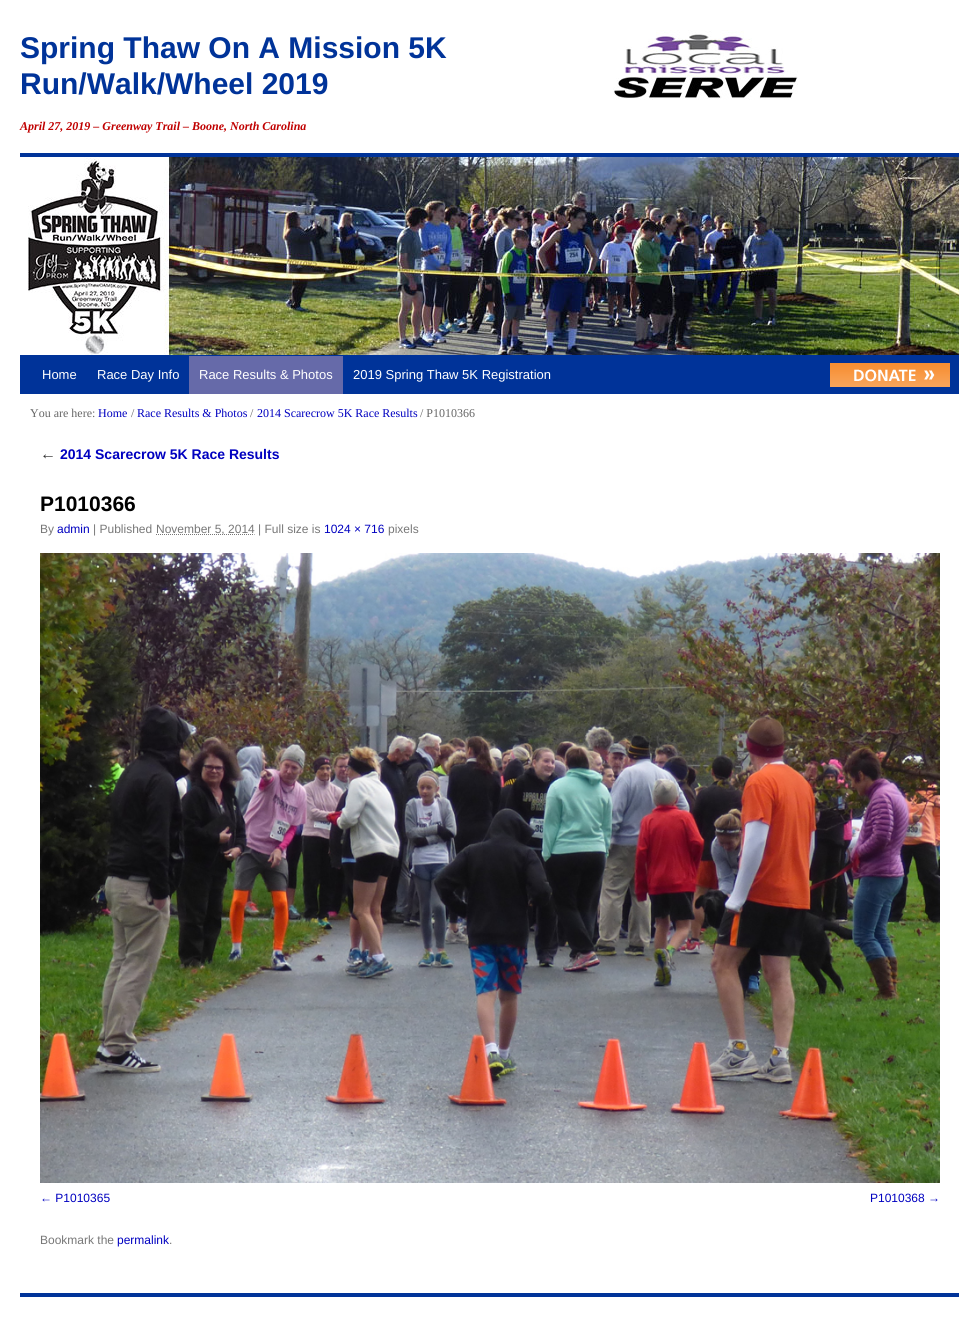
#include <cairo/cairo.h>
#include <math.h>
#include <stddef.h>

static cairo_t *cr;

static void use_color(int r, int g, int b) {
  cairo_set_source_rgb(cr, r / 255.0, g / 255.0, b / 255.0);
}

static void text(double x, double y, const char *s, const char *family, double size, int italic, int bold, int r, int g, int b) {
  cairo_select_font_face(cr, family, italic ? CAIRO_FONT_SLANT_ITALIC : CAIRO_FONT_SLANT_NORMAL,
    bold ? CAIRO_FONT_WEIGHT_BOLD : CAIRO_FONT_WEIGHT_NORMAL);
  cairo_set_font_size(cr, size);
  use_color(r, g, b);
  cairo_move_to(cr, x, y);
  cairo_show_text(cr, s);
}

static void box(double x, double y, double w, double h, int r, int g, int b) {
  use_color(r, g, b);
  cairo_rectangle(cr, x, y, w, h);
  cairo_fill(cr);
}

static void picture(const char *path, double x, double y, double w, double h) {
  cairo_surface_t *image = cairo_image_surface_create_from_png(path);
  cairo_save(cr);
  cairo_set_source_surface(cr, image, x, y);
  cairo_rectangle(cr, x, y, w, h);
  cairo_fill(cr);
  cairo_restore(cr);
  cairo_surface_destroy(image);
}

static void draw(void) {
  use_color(255, 255, 255);
  cairo_paint(cr);
  picture("img_01.png", 613, 30, 185, 70);
  box(20, 153, 939, 4, 0, 51, 153);
  box(20, 355, 939, 39, 0, 51, 153);
  picture("img_02.png", 28, 157, 931, 198);
  box(189, 356, 154, 38, 102, 106, 169);
  picture("img_03.png", 830, 363, 120, 24);
  cairo_new_path(cr);
  cairo_move_to(cr, 156, 534.5);
  cairo_line_to(cr, 254.5, 534.5);
  use_color(119, 119, 119);
  cairo_set_line_width(cr, 1);
  cairo_set_dash(cr, (double[]){1, 1}, 2, 0);
  cairo_stroke(cr);
  picture("img_04.png", 40, 553, 900, 630);
  box(20, 1293, 939, 4, 0, 51, 153);
  text(20, 58, "Spring Thaw On A Mission 5K", "Liberation Sans", 30, 0, 1, 0, 51, 153);
  text(20, 94, "Run/Walk/Wheel 2019", "Liberation Sans", 30, 0, 1, 0, 51, 153);
  text(20, 130, "April 27, 2019 – Greenway Trail – Boone, North Carolina", "Liberation Serif", 12, 1, 1, 192, 0, 0);
  text(42, 379, "Home", "Liberation Sans", 13, 0, 0, 255, 255, 255);
  text(97, 379, "Race Day Info", "Liberation Sans", 13, 0, 0, 255, 255, 255);
  text(199, 379, "Race Results & Photos", "Liberation Sans", 13, 0, 0, 255, 255, 255);
  text(353, 379, "2019 Spring Thaw 5K Registration", "Liberation Sans", 13, 0, 0, 255, 255, 255);
  text(30, 417, "You are here:", "Liberation Serif", 12, 0, 0, 102, 102, 102);
  text(98, 417, "Home", "Liberation Serif", 12, 0, 0, 0, 0, 192);
  text(131, 417, "/", "Liberation Serif", 12, 0, 0, 102, 102, 102);
  text(137, 417, "Race Results & Photos", "Liberation Serif", 12, 0, 0, 0, 0, 192);
  text(250, 417, "/", "Liberation Serif", 12, 0, 0, 102, 102, 102);
  text(257, 417, "2014 Scarecrow 5K Race Results", "Liberation Serif", 12, 0, 0, 0, 0, 192);
  text(420, 417, "/ P1010366", "Liberation Serif", 12, 0, 0, 102, 102, 102);
  text(40, 459, "←", "Liberation Serif", 16, 1, 0, 51, 51, 51);
  text(60, 459, "2014 Scarecrow 5K Race Results", "Liberation Sans", 14, 0, 1, 0, 0, 192);
  text(40, 511, "P1010366", "Liberation Sans", 21, 0, 1, 0, 0, 0);
  text(40, 533, "By", "Liberation Sans", 12, 0, 0, 119, 119, 119);
  text(57, 533, "admin", "Liberation Sans", 12, 0, 0, 0, 0, 192);
  text(93, 533, "| Published", "Liberation Sans", 12, 0, 0, 119, 119, 119);
  text(156, 533, "November 5, 2014 | Full size is", "Liberation Sans", 12, 0, 0, 119, 119, 119);
  text(324, 533, "1024 × 716", "Liberation Sans", 12, 0, 0, 0, 0, 192);
  text(388, 533, "pixels", "Liberation Sans", 12, 0, 0, 119, 119, 119);
  text(40, 1202, "← P1010365", "Liberation Sans", 12, 0, 0, 0, 0, 192);
  text(870, 1202, "P1010368 →", "Liberation Sans", 12, 0, 0, 0, 0, 192);
  text(40, 1244, "Bookmark the", "Liberation Sans", 12, 0, 0, 119, 119, 119);
  text(117, 1244, "permalink", "Liberation Sans", 12, 0, 0, 0, 0, 192);
  text(169, 1244, ".", "Liberation Sans", 12, 0, 0, 119, 119, 119);
}

int main(void) {
  cairo_surface_t *surface = cairo_image_surface_create(CAIRO_FORMAT_RGB24, 959, 1322);
  cr = cairo_create(surface);
  cairo_font_options_t *options = cairo_font_options_create();
  cairo_font_options_set_hint_metrics(options, CAIRO_HINT_METRICS_OFF);
  cairo_font_options_set_hint_style(options, CAIRO_HINT_STYLE_NONE);
  cairo_set_font_options(cr, options);
  cairo_set_miter_limit(cr, 4);
  draw();
  cairo_surface_write_to_png(surface, "out.png");
  cairo_font_options_destroy(options);
  cairo_destroy(cr);
  cairo_surface_destroy(surface);
  return 0;
}
